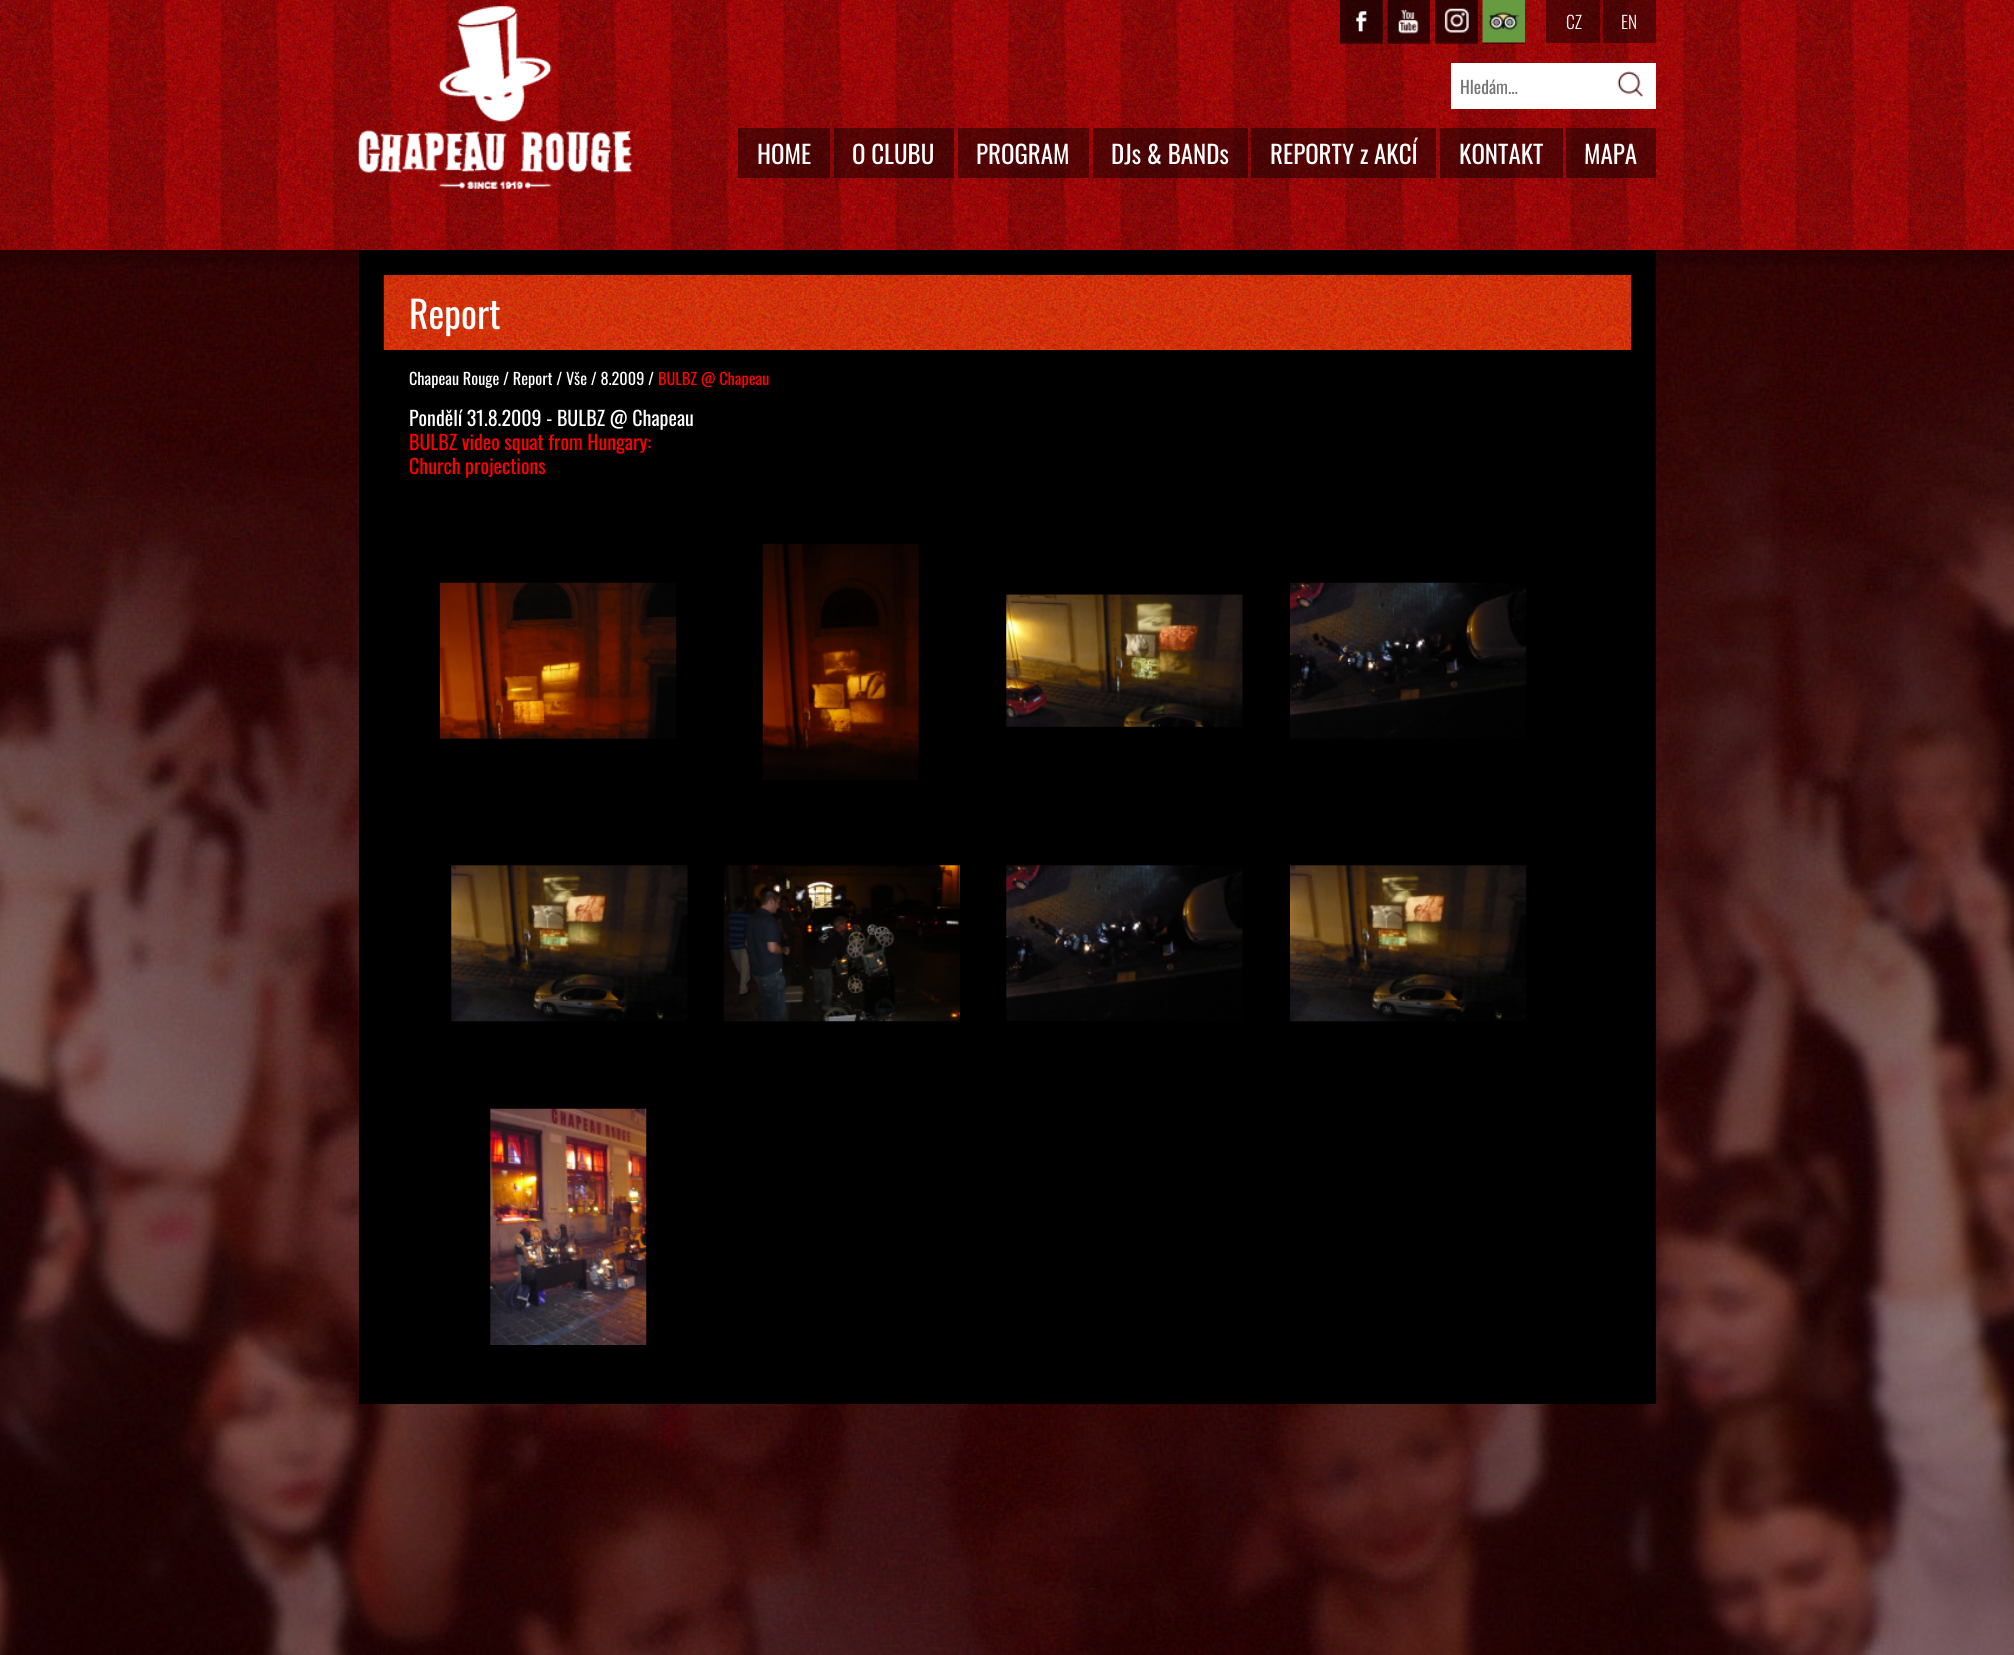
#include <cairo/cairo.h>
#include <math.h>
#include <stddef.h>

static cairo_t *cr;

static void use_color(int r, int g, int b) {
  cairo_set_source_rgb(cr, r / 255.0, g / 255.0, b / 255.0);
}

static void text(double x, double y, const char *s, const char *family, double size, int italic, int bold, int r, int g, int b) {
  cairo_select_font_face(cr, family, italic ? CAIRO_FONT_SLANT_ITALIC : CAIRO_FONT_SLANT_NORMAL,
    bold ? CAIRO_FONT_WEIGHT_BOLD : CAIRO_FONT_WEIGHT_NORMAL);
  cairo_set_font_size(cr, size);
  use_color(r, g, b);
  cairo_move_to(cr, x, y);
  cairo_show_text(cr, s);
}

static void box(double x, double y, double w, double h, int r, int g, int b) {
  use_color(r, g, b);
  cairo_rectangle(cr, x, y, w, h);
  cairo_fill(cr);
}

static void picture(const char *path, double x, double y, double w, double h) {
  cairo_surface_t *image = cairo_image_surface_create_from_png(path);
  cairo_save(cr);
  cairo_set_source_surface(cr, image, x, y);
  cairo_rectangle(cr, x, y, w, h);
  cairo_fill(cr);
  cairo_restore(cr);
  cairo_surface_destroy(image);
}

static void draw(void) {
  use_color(255, 255, 255);
  cairo_paint(cr);
  picture("img_01.png", 0, 250, 2014, 1405);
  picture("img_02.png", 0, 0, 2014, 250);
  picture("img_03.png", 358, 6, 274, 183);
  cairo_set_source_rgba(cr, 0, 0, 0, 0.45);
  cairo_rectangle(cr, 1340, 0, 43, 44);
  cairo_fill(cr);
  picture("img_04.png", 1340, 0, 43, 43);
  cairo_rectangle(cr, 1388, 0, 42, 44);
  cairo_fill(cr);
  picture("img_05.png", 1387, 0, 43, 43);
  cairo_rectangle(cr, 1435, 0, 43, 44);
  cairo_fill(cr);
  picture("img_06.png", 1435, 0, 43, 43);
  cairo_rectangle(cr, 1483, 42, 42, 2);
  cairo_fill(cr);
  picture("img_07.png", 1482, 0, 43, 43);
  cairo_rectangle(cr, 1546, 0, 54, 43);
  cairo_fill(cr);
  cairo_rectangle(cr, 1603, 0, 53, 43);
  cairo_fill(cr);
  box(1451, 63, 205, 46, 255, 255, 255);
  picture("img_08.png", 1617, 71, 26, 26);
  cairo_set_source_rgba(cr, 0, 0, 0, 0.45);
  cairo_rectangle(cr, 738, 128, 92, 50);
  cairo_fill(cr);
  cairo_rectangle(cr, 834, 128, 120, 50);
  cairo_fill(cr);
  cairo_rectangle(cr, 958, 128, 131, 50);
  cairo_fill(cr);
  cairo_rectangle(cr, 1093, 128, 155, 50);
  cairo_fill(cr);
  cairo_rectangle(cr, 1251, 128, 185, 50);
  cairo_fill(cr);
  cairo_rectangle(cr, 1440, 128, 123, 50);
  cairo_fill(cr);
  cairo_rectangle(cr, 1566, 128, 90, 50);
  cairo_fill(cr);
  box(359, 250, 1297, 1154, 0, 0, 0);
  picture("img_09.png", 383, 275, 1249, 75);
  picture("img_10.png", 440, 582, 237, 157);
  picture("img_11.png", 762, 543, 157, 237);
  picture("img_12.png", 1006, 594, 237, 133);
  picture("img_13.png", 1290, 582, 237, 157);
  picture("img_14.png", 451, 865, 237, 157);
  picture("img_15.png", 723, 865, 237, 157);
  picture("img_16.png", 1006, 865, 237, 156);
  picture("img_17.png", 1290, 865, 237, 157);
  picture("img_18.png", 490, 1108, 157, 237);
  text(1566, 29, "CZ", "Oswald Light", 17.5, 0, 0, 255, 255, 255);
  text(1621, 29, "EN", "Oswald Light", 17.5, 0, 0, 255, 255, 255);
  text(1460, 94, "Hledám...", "Oswald", 17.5, 0, 0, 117, 117, 117);
  text(757, 164, "HOME", "Oswald", 25, 0, 0, 255, 255, 255);
  text(852, 164, "O CLUBU", "Oswald", 25, 0, 0, 255, 255, 255);
  text(976, 164, "PROGRAM", "Oswald", 25, 0, 0, 255, 255, 255);
  text(1111, 164, "DJs & BANDs", "Oswald", 25, 0, 0, 255, 255, 255);
  text(1270, 164, "REPORTY z AKCÍ", "Oswald", 25, 0, 0, 255, 255, 255);
  text(1459, 164, "KONTAKT", "Oswald", 25, 0, 0, 255, 255, 255);
  text(1584, 164, "MAPA", "Oswald", 25, 0, 0, 255, 255, 255);
  text(409, 329, "Report", "Oswald", 37.5, 0, 0, 255, 255, 255);
  text(409, 385, "Chapeau Rouge / Report / Vše / 8.2009 /", "Oswald", 16.25, 0, 0, 255, 255, 255);
  text(658, 385, "BULBZ @ Chapeau", "Oswald", 16.25, 0, 0, 255, 0, 0);
  text(409, 426, "Pondělí 31.8.2009 - BULBZ @ Chapeau", "Oswald", 20, 0, 0, 255, 255, 255);
  text(409, 450, "BULBZ video squat from Hungary:", "Oswald", 20, 0, 0, 255, 0, 0);
  text(409, 474, "Church projections", "Oswald", 20, 0, 0, 255, 0, 0);
}

int main(void) {
  cairo_surface_t *surface = cairo_image_surface_create(CAIRO_FORMAT_RGB24, 2014, 1655);
  cr = cairo_create(surface);
  cairo_font_options_t *options = cairo_font_options_create();
  cairo_font_options_set_hint_metrics(options, CAIRO_HINT_METRICS_OFF);
  cairo_font_options_set_hint_style(options, CAIRO_HINT_STYLE_NONE);
  cairo_set_font_options(cr, options);
  cairo_set_miter_limit(cr, 4);
  draw();
  cairo_surface_write_to_png(surface, "out.png");
  cairo_font_options_destroy(options);
  cairo_destroy(cr);
  cairo_surface_destroy(surface);
  return 0;
}
